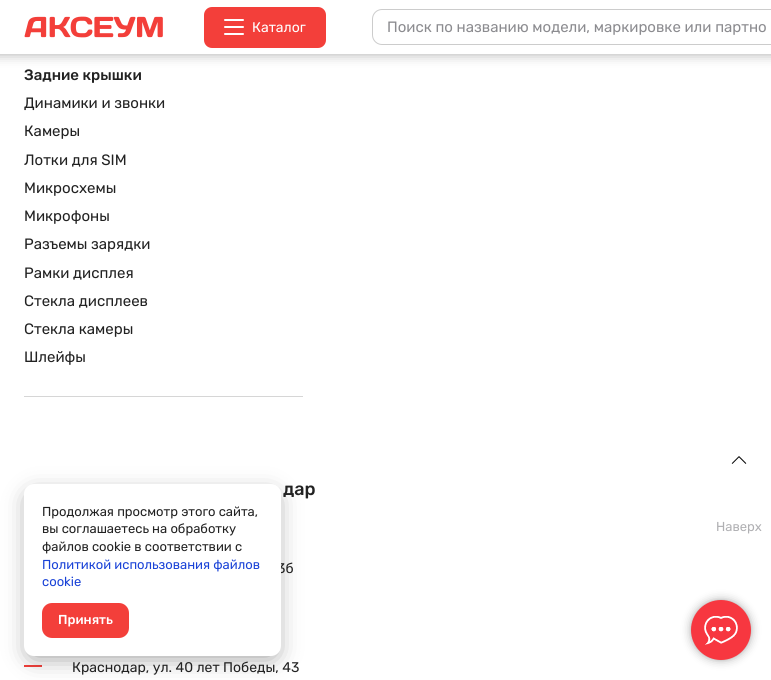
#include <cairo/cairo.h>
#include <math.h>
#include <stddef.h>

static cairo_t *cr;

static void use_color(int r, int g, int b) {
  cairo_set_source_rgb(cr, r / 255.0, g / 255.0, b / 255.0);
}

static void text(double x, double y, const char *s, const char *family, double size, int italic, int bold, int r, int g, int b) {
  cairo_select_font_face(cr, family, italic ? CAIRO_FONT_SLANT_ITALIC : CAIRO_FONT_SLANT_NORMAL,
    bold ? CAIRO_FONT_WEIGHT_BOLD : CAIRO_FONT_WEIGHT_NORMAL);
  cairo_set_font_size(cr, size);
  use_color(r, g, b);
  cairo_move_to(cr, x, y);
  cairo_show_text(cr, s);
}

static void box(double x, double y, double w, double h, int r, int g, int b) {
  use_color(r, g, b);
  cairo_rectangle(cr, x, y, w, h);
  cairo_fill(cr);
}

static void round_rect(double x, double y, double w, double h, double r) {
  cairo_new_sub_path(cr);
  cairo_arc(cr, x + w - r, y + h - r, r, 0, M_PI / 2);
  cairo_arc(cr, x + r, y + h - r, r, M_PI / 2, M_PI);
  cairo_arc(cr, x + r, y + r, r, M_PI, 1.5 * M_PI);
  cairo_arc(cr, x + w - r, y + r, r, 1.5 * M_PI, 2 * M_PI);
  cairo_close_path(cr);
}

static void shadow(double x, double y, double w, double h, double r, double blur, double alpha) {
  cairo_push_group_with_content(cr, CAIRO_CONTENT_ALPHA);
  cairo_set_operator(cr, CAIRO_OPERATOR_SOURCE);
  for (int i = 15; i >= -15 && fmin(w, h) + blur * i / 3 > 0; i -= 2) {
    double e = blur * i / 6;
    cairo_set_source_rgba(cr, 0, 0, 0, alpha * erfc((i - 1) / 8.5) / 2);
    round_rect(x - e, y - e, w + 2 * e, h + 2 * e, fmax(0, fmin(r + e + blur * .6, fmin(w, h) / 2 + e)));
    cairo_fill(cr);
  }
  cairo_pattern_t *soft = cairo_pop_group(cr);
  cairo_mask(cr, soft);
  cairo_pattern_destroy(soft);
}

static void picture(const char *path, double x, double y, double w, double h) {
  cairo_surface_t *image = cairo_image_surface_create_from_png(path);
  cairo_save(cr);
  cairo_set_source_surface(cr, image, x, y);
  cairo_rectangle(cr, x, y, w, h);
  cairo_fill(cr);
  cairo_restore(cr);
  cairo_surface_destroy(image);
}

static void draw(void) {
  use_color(255, 255, 255);
  cairo_paint(cr);
  use_color(34, 34, 34);
  shadow(-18, 2, 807, 53, 0, 6, 0.32);
  box(0, 0, 771, 54, 255, 255, 255);
  box(0, 54, 771, 1, 214, 214, 214);
  picture("img_01.png", 24, 16, 139, 22);
  use_color(243, 63, 58);
  round_rect(204, 7, 122, 41, 8);
  cairo_fill(cr);
  use_color(255, 255, 255);
  round_rect(224, 19, 20, 2, 1);
  cairo_fill(cr);
  round_rect(224, 26, 20, 2, 1);
  cairo_fill(cr);
  round_rect(224, 33, 20, 2, 1);
  cairo_fill(cr);
  round_rect(372.5, 9.5, 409, 35, 9.5);
  use_color(204, 204, 204);
  cairo_set_line_width(cr, 1);
  cairo_stroke(cr);
  box(24, 396, 279, 1, 214, 214, 214);
  box(24, 665, 18, 2, 243, 63, 58);
  use_color(34, 34, 34);
  shadow(30, 496, 245, 160, 4, 12, 0.5);
  picture("img_02.png", 731, 456, 16, 8);
  use_color(0, 0, 0);
  shadow(691, 600, 60, 60, 30, 5, 0.3);
  shadow(691, 600, 60, 60, 30, 1.5, 0.1);
  use_color(247, 55, 64);
  cairo_arc(cr, 721, 630, 30, 0, 2 * M_PI);
  cairo_fill(cr);
  picture("img_03.png", 704, 616, 34, 29);
  text(252, 32, "Каталог", "Rubik", 14, 0, 0, 255, 255, 255);
  text(387, 32, "Поиск по названию модели, маркировке или партно", "Rubik", 15, 0, 0, 140, 140, 144);
  text(24, 80, "Задние крышки", "Rubik Medium", 15, 0, 0, 34, 34, 34);
  text(24, 108, "Динамики и звонки", "Rubik", 15, 0, 0, 34, 34, 34);
  text(24, 136, "Камеры", "Rubik", 15, 0, 0, 34, 34, 34);
  text(24, 165, "Лотки для SIM", "Rubik", 15, 0, 0, 34, 34, 34);
  text(24, 193, "Микросхемы", "Rubik", 15, 0, 0, 34, 34, 34);
  text(24, 221, "Микрофоны", "Rubik", 15, 0, 0, 34, 34, 34);
  text(24, 249, "Разъемы зарядки", "Rubik", 15, 0, 0, 34, 34, 34);
  text(24, 278, "Рамки дисплея", "Rubik", 15, 0, 0, 34, 34, 34);
  text(24, 306, "Стекла дисплеев", "Rubik", 15, 0, 0, 34, 34, 34);
  text(24, 334, "Стекла камеры", "Rubik", 15, 0, 0, 34, 34, 34);
  text(24, 362, "Шлейфы", "Rubik", 15, 0, 0, 34, 34, 34);
  text(283, 495, "дар", "Rubik Medium", 18, 0, 0, 34, 34, 34);
  text(277, 573, "3б", "Rubik", 14, 0, 0, 34, 34, 34);
  text(72, 672, "Краснодар, ул. 40 лет Победы, 43", "Rubik", 14, 0, 0, 34, 34, 34);
  use_color(255, 255, 255);
  round_rect(24, 484, 257, 172, 10);
  cairo_fill(cr);
  text(42, 516, "Продолжая просмотр этого сайта,", "Rubik", 13, 0, 0, 34, 34, 34);
  text(42, 533, "вы соглашаетесь на обработку", "Rubik", 13, 0, 0, 34, 34, 34);
  text(42, 551, "файлов cookie в соответствии с", "Rubik", 13, 0, 0, 34, 34, 34);
  text(42, 569, "Политикой использования файлов", "Rubik", 13, 0, 0, 25, 66, 215);
  text(42, 586, "cookie", "Rubik", 13, 0, 0, 25, 66, 215);
  use_color(243, 63, 58);
  round_rect(42, 603, 87, 35, 10);
  cairo_fill(cr);
  text(58, 624, "Принять", "Rubik Medium", 13, 0, 0, 255, 255, 255);
  text(716, 531, "Наверх", "Rubik", 13, 0, 0, 176, 176, 179);
}

int main(void) {
  cairo_surface_t *surface = cairo_image_surface_create(CAIRO_FORMAT_RGB24, 771, 680);
  cr = cairo_create(surface);
  cairo_font_options_t *options = cairo_font_options_create();
  cairo_font_options_set_hint_metrics(options, CAIRO_HINT_METRICS_OFF);
  cairo_font_options_set_hint_style(options, CAIRO_HINT_STYLE_NONE);
  cairo_set_font_options(cr, options);
  cairo_set_miter_limit(cr, 4);
  draw();
  cairo_surface_write_to_png(surface, "out.png");
  cairo_font_options_destroy(options);
  cairo_destroy(cr);
  cairo_surface_destroy(surface);
  return 0;
}
